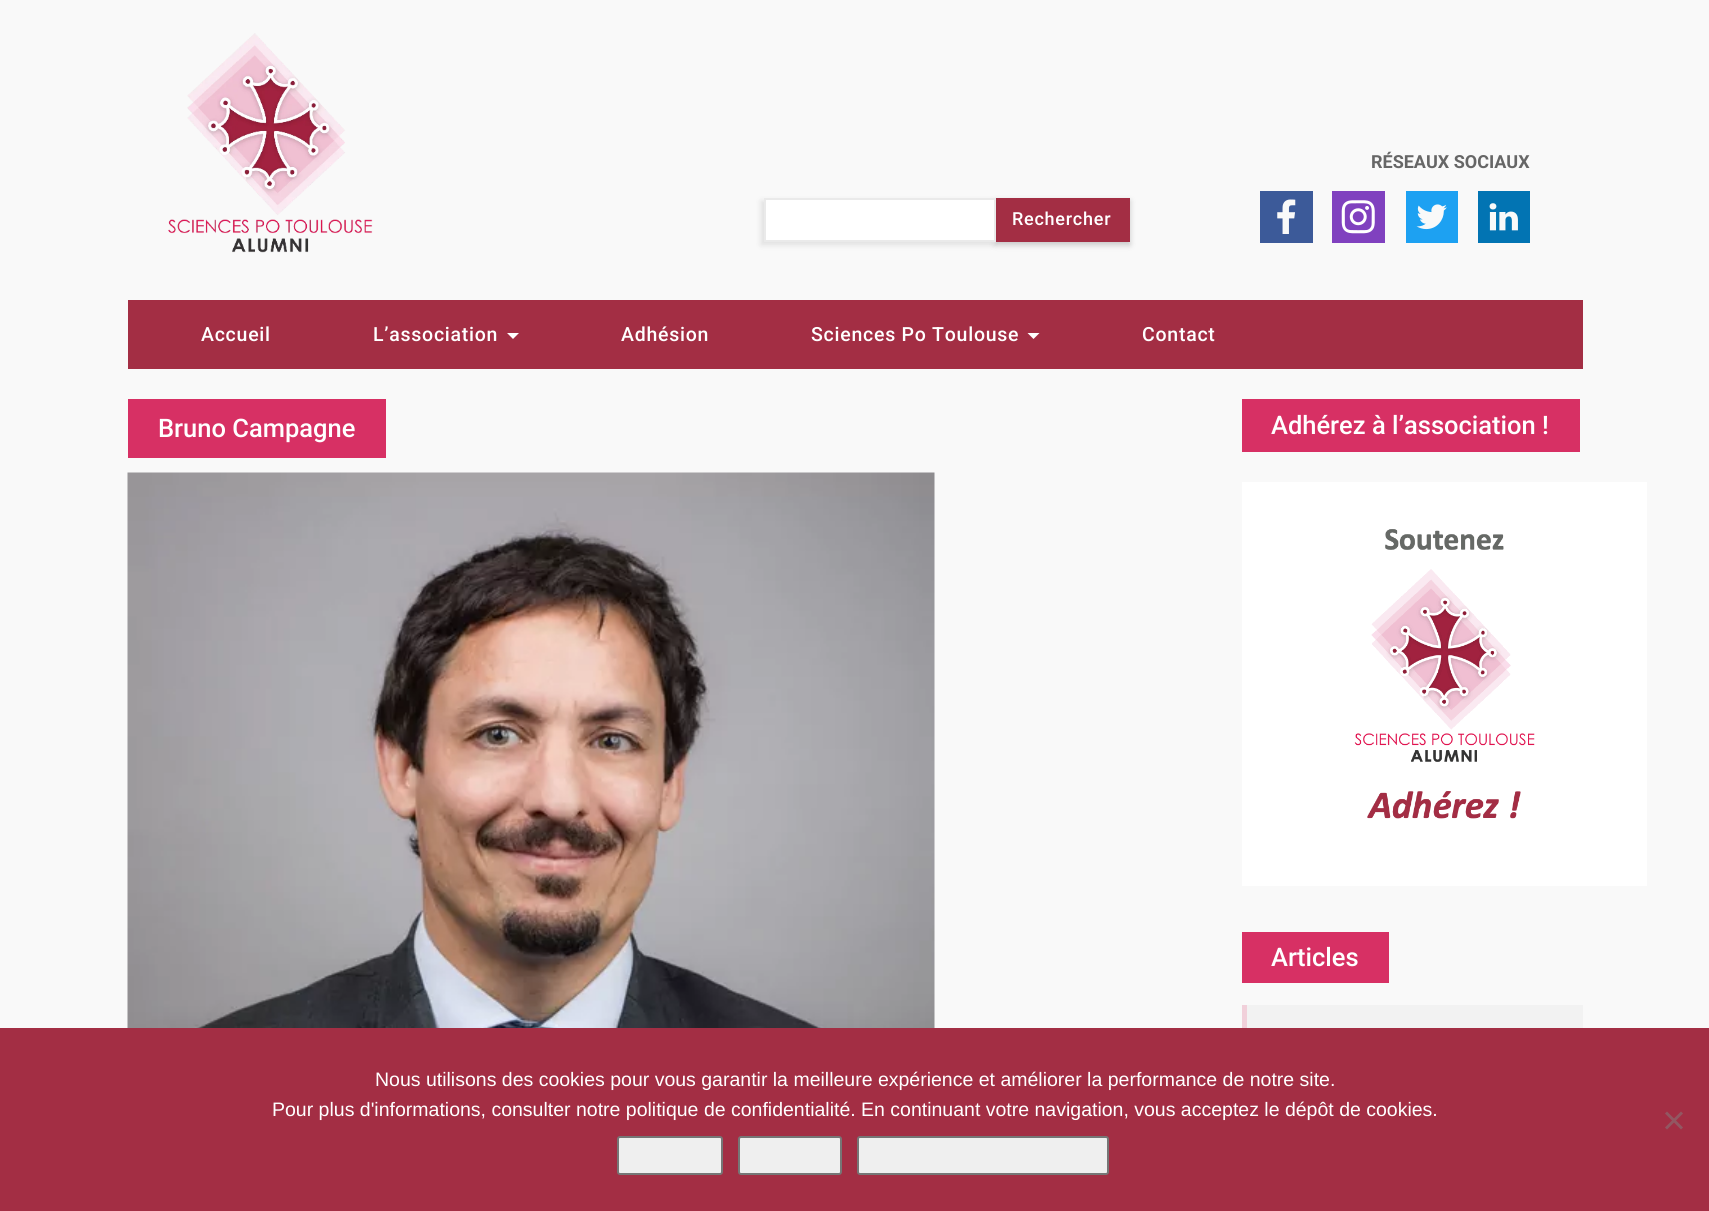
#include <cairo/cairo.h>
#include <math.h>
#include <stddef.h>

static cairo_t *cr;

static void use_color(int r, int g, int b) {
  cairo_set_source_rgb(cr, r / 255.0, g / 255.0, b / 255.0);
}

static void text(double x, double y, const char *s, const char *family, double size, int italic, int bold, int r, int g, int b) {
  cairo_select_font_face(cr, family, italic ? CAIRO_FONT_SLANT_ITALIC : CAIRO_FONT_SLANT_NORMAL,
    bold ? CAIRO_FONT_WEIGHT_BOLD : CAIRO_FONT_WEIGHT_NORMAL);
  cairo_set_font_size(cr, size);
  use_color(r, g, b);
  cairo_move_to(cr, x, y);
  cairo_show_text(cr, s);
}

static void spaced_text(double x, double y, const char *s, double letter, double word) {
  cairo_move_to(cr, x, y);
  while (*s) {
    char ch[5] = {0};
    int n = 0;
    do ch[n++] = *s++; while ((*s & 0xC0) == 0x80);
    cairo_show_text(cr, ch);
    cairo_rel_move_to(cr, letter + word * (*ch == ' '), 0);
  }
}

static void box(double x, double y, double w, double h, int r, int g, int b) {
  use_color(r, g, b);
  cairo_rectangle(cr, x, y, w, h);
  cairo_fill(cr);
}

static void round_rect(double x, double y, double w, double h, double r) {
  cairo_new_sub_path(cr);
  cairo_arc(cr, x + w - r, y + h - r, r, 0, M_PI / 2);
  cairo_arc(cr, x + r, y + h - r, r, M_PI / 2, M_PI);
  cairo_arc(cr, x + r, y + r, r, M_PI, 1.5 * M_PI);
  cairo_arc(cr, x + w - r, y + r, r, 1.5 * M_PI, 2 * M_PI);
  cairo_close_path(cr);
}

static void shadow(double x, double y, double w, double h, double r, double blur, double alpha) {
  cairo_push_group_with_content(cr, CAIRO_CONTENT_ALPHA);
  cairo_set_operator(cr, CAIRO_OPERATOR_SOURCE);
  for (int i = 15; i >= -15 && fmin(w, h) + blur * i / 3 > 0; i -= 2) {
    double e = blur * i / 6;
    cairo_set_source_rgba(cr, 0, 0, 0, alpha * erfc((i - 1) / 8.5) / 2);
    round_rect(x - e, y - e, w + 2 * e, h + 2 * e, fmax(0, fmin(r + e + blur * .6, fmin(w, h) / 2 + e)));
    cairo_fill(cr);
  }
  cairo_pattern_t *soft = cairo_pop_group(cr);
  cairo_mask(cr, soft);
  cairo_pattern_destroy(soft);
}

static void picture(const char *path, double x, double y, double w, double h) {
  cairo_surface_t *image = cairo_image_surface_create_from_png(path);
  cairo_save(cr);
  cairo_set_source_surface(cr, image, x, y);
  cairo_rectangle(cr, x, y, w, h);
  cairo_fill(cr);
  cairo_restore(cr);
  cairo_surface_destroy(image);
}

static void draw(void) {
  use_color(249, 249, 249);
  cairo_paint(cr);
  picture("img_01.png", 168, 33, 205, 220);
  use_color(0, 0, 0);
  shadow(995, 201, 135, 44, 0, 3, 0.2);
  box(996, 198, 134, 44, 163, 46, 68);
  use_color(0, 0, 0);
  shadow(761, 201, 232, 44, 0, 3, 0.1);
  use_color(255, 255, 255);
  cairo_rectangle(cr, 765, 199, 230, 42);
  cairo_fill_preserve(cr);
  use_color(234, 234, 234);
  cairo_stroke(cr);
  picture("img_02.png", 1260, 191, 53, 52);
  picture("img_03.png", 1332, 191, 53, 52);
  picture("img_04.png", 1406, 191, 52, 52);
  picture("img_05.png", 1478, 191, 52, 52);
  box(128, 300, 1455, 69, 163, 46, 68);
  use_color(255, 255, 255);
  cairo_new_path(cr);
  cairo_move_to(cr, 507, 333);
  cairo_line_to(cr, 519, 333);
  cairo_line_to(cr, 513, 339);
  cairo_close_path(cr);
  cairo_fill(cr);
  cairo_new_path(cr);
  cairo_move_to(cr, 1027.5, 333);
  cairo_line_to(cr, 1039.5, 333);
  cairo_line_to(cr, 1033.5, 339);
  cairo_close_path(cr);
  cairo_fill(cr);
  box(128, 399, 258, 59, 215, 48, 100);
  picture("img_06.png", 127, 472, 808, 556);
  box(1242, 399, 338, 53, 215, 48, 100);
  picture("img_07.png", 1242, 482, 405, 404);
  box(1242, 932, 147, 51, 215, 48, 100);
  box(1247, 1005, 336, 23, 242, 242, 242);
  box(1242, 1005, 5, 23, 241, 208, 218);
  box(0, 1028, 1709, 183, 163, 46, 68);
  use_color(146, 87, 98);
  cairo_new_path(cr);
  cairo_move_to(cr, 1681, 1111.5);
  cairo_line_to(cr, 1683, 1113.5);
  cairo_line_to(cr, 1667, 1129.5);
  cairo_line_to(cr, 1665, 1127.5);
  cairo_close_path(cr);
  cairo_fill(cr);
  cairo_new_path(cr);
  cairo_move_to(cr, 1665, 1113.5);
  cairo_line_to(cr, 1667, 1111.5);
  cairo_line_to(cr, 1683, 1127.5);
  cairo_line_to(cr, 1681, 1129.5);
  cairo_close_path(cr);
  cairo_fill(cr);
  use_color(239, 239, 239);
  round_rect(618, 1137, 104, 37, 2);
  cairo_fill_preserve(cr);
  use_color(118, 118, 118);
  cairo_stroke(cr);
  use_color(239, 239, 239);
  round_rect(739, 1137, 102, 37, 2);
  cairo_fill_preserve(cr);
  use_color(118, 118, 118);
  cairo_stroke(cr);
  use_color(239, 239, 239);
  round_rect(858, 1137, 250, 37, 2);
  cairo_fill_preserve(cr);
  use_color(118, 118, 118);
  cairo_stroke(cr);
  text(1371, 168, "RÉSEAUX SOCIAUX", "Roboto", 18, 0, 1, 102, 102, 102);
  cairo_select_font_face(cr, "Roboto Medium", CAIRO_FONT_SLANT_NORMAL, CAIRO_FONT_WEIGHT_NORMAL);
  use_color(255, 255, 255);
  spaced_text(1012, 225, "Rechercher", 0.75, 0);
  cairo_set_font_size(cr, 19.5);
  spaced_text(201, 341, "Accueil", 0.75, 0);
  spaced_text(373, 341, "L’association", 0.75, 0);
  spaced_text(621, 341, "Adhésion", 0.75, 0);
  spaced_text(811, 341, "Sciences Po Toulouse", 0.75, 0);
  spaced_text(1142, 341, "Contact", 0.75, 0);
  text(158, 437, "Bruno Campagne", "Roboto Medium", 25.5, 0, 0, 255, 255, 255);
  text(1271, 434, "Adhérez à l’association !", "Roboto Medium", 25.5, 0, 0, 255, 255, 255);
  text(1271, 966, "Articles", "Roboto Medium", 25.5, 0, 0, 255, 255, 255);
  text(375, 1086, "Nous utilisons des cookies pour vous garantir la meilleure expérience et améliorer la performance de notre site.", "Liberation Sans", 19.5, 0, 0, 255, 255, 255);
  text(272, 1116, "Pour plus d'informations, consulter notre politique de confidentialité. En continuant votre navigation, vous acceptez le dépôt de cookies.", "Liberation Sans", 19.5, 0, 0, 255, 255, 255);
}

int main(void) {
  cairo_surface_t *surface = cairo_image_surface_create(CAIRO_FORMAT_RGB24, 1709, 1211);
  cr = cairo_create(surface);
  cairo_font_options_t *options = cairo_font_options_create();
  cairo_font_options_set_hint_metrics(options, CAIRO_HINT_METRICS_OFF);
  cairo_font_options_set_hint_style(options, CAIRO_HINT_STYLE_NONE);
  cairo_set_font_options(cr, options);
  cairo_set_miter_limit(cr, 4);
  draw();
  cairo_surface_write_to_png(surface, "out.png");
  cairo_font_options_destroy(options);
  cairo_destroy(cr);
  cairo_surface_destroy(surface);
  return 0;
}
